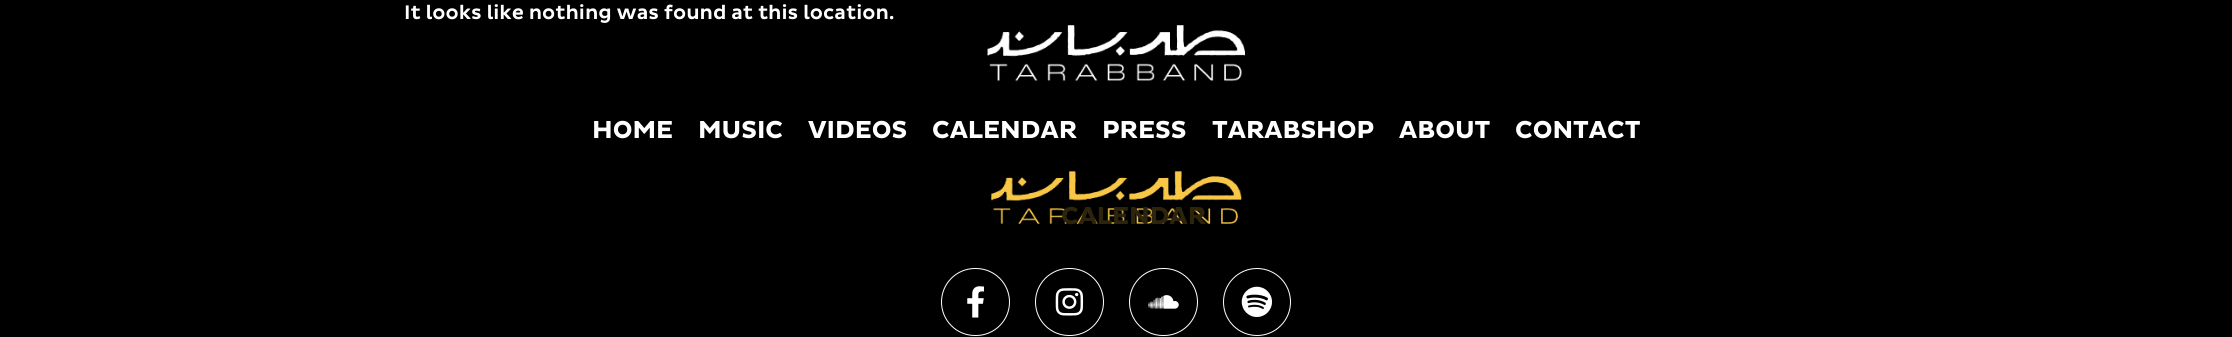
#include <cairo/cairo.h>
#include <math.h>
#include <stddef.h>

static cairo_t *cr;

static void use_color(int r, int g, int b) {
  cairo_set_source_rgb(cr, r / 255.0, g / 255.0, b / 255.0);
}

static void text(double x, double y, const char *s, const char *family, double size, int italic, int bold, int r, int g, int b) {
  cairo_select_font_face(cr, family, italic ? CAIRO_FONT_SLANT_ITALIC : CAIRO_FONT_SLANT_NORMAL,
    bold ? CAIRO_FONT_WEIGHT_BOLD : CAIRO_FONT_WEIGHT_NORMAL);
  cairo_set_font_size(cr, size);
  use_color(r, g, b);
  cairo_move_to(cr, x, y);
  cairo_show_text(cr, s);
}

static void round_rect(double x, double y, double w, double h, double r) {
  cairo_new_sub_path(cr);
  cairo_arc(cr, x + w - r, y + h - r, r, 0, M_PI / 2);
  cairo_arc(cr, x + r, y + h - r, r, M_PI / 2, M_PI);
  cairo_arc(cr, x + r, y + r, r, M_PI, 1.5 * M_PI);
  cairo_arc(cr, x + w - r, y + r, r, 1.5 * M_PI, 2 * M_PI);
  cairo_close_path(cr);
}

static void picture(const char *path, double x, double y, double w, double h) {
  cairo_surface_t *image = cairo_image_surface_create_from_png(path);
  cairo_save(cr);
  cairo_set_source_surface(cr, image, x, y);
  cairo_rectangle(cr, x, y, w, h);
  cairo_fill(cr);
  cairo_restore(cr);
  cairo_surface_destroy(image);
}

static void draw(void) {
  use_color(0, 0, 0);
  cairo_paint(cr);
  picture("img_01.png", 987, 25, 258, 57);
  picture("img_02.png", 991, 171, 251, 53);
  round_rect(941.5, 268.5, 68, 67, 33.5);
  use_color(255, 255, 255);
  cairo_set_line_width(cr, 1);
  cairo_stroke(cr);
  picture("img_03.png", 967, 286, 17, 32);
  round_rect(1035.5, 268.5, 68, 67, 33.5);
  cairo_stroke(cr);
  picture("img_04.png", 1055, 288, 29, 28);
  round_rect(1129.5, 268.5, 68, 67, 33.5);
  cairo_stroke(cr);
  picture("img_05.png", 1148, 295, 31, 14);
  cairo_arc(cr, 1257, 302, 33.5, 0, 2 * M_PI);
  cairo_stroke(cr);
  picture("img_06.png", 1241, 286, 31, 31);
  text(404, 19, "It looks like nothing was found at this location.", "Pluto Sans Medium", 20, 0, 0, 255, 255, 255);
  text(592, 138, "HOME", "Pluto Sans", 25, 0, 1, 255, 255, 255);
  text(698, 138, "MUSIC", "Pluto Sans", 25, 0, 1, 255, 255, 255);
  text(808, 138, "VIDEOS", "Pluto Sans", 25, 0, 1, 255, 255, 255);
  text(932, 138, "CALENDAR", "Pluto Sans", 25, 0, 1, 255, 255, 255);
  text(1102, 138, "PRESS", "Pluto Sans", 25, 0, 1, 255, 255, 255);
  text(1212, 138, "TARABSHOP", "Pluto Sans", 25, 0, 1, 255, 255, 255);
  text(1399, 138, "ABOUT", "Pluto Sans", 25, 0, 1, 255, 255, 255);
  text(1515, 138, "CONTACT", "Pluto Sans", 25, 0, 1, 255, 255, 255);
  text(1061, 224, "CALENDAR", "Pluto Sans", 25, 0, 1, 45, 36, 12);
}

int main(void) {
  cairo_surface_t *surface = cairo_image_surface_create(CAIRO_FORMAT_RGB24, 2232, 337);
  cr = cairo_create(surface);
  cairo_font_options_t *options = cairo_font_options_create();
  cairo_font_options_set_hint_metrics(options, CAIRO_HINT_METRICS_OFF);
  cairo_font_options_set_hint_style(options, CAIRO_HINT_STYLE_NONE);
  cairo_set_font_options(cr, options);
  cairo_set_miter_limit(cr, 4);
  draw();
  cairo_surface_write_to_png(surface, "out.png");
  cairo_font_options_destroy(options);
  cairo_destroy(cr);
  cairo_surface_destroy(surface);
  return 0;
}
